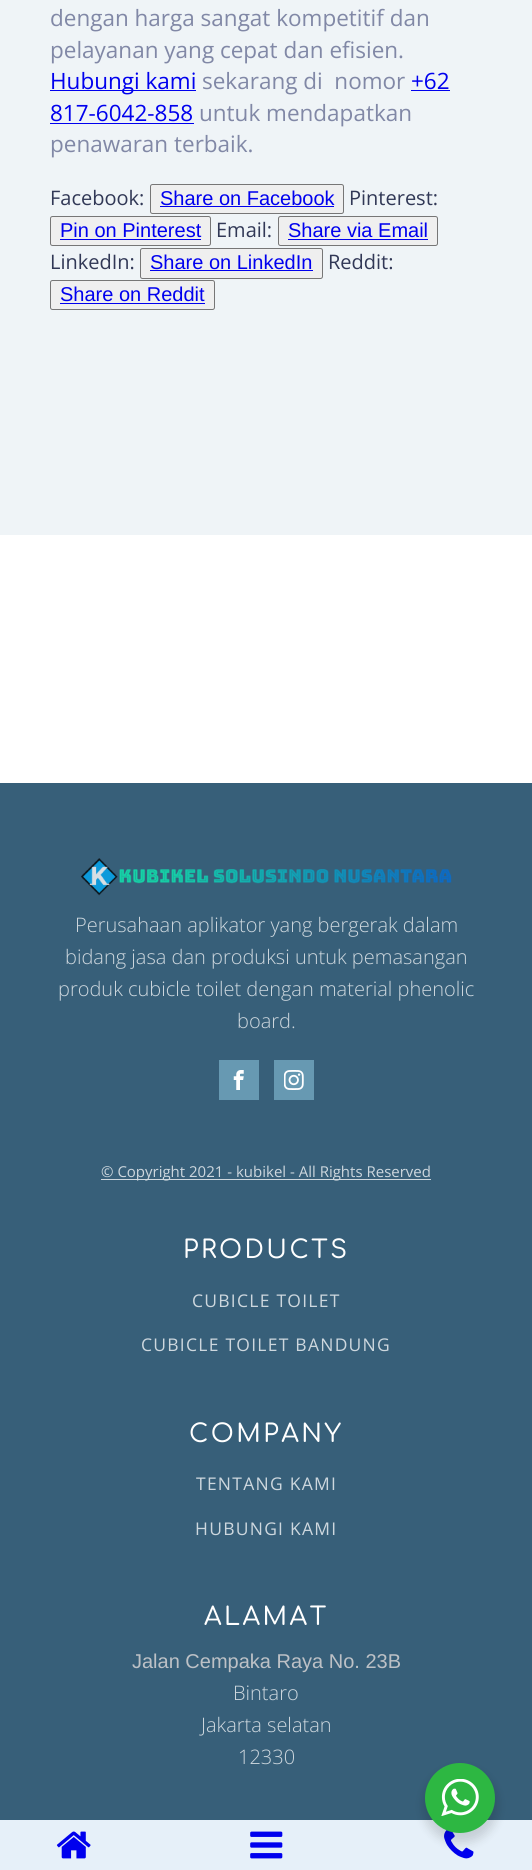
#include <cairo/cairo.h>
#include <math.h>
#include <stddef.h>

static cairo_t *cr;

static void use_color(int r, int g, int b) {
  cairo_set_source_rgb(cr, r / 255.0, g / 255.0, b / 255.0);
}

static void text(double x, double y, const char *s, const char *family, double size, int italic, int bold, int r, int g, int b) {
  cairo_select_font_face(cr, family, italic ? CAIRO_FONT_SLANT_ITALIC : CAIRO_FONT_SLANT_NORMAL,
    bold ? CAIRO_FONT_WEIGHT_BOLD : CAIRO_FONT_WEIGHT_NORMAL);
  cairo_set_font_size(cr, size);
  use_color(r, g, b);
  cairo_move_to(cr, x, y);
  cairo_show_text(cr, s);
}

static void spaced_text(double x, double y, const char *s, double letter, double word) {
  cairo_move_to(cr, x, y);
  while (*s) {
    char ch[5] = {0};
    int n = 0;
    do ch[n++] = *s++; while ((*s & 0xC0) == 0x80);
    cairo_show_text(cr, ch);
    cairo_rel_move_to(cr, letter + word * (*ch == ' '), 0);
  }
}

static void box(double x, double y, double w, double h, int r, int g, int b) {
  use_color(r, g, b);
  cairo_rectangle(cr, x, y, w, h);
  cairo_fill(cr);
}

static void round_rect(double x, double y, double w, double h, double r) {
  cairo_new_sub_path(cr);
  cairo_arc(cr, x + w - r, y + h - r, r, 0, M_PI / 2);
  cairo_arc(cr, x + r, y + h - r, r, M_PI / 2, M_PI);
  cairo_arc(cr, x + r, y + r, r, M_PI, 1.5 * M_PI);
  cairo_arc(cr, x + w - r, y + r, r, 1.5 * M_PI, 2 * M_PI);
  cairo_close_path(cr);
}

static void shadow(double x, double y, double w, double h, double r, double blur, double alpha) {
  cairo_push_group_with_content(cr, CAIRO_CONTENT_ALPHA);
  cairo_set_operator(cr, CAIRO_OPERATOR_SOURCE);
  for (int i = 15; i >= -15 && fmin(w, h) + blur * i / 3 > 0; i -= 2) {
    double e = blur * i / 6;
    cairo_set_source_rgba(cr, 0, 0, 0, alpha * erfc((i - 1) / 8.5) / 2);
    round_rect(x - e, y - e, w + 2 * e, h + 2 * e, fmax(0, fmin(r + e + blur * .6, fmin(w, h) / 2 + e)));
    cairo_fill(cr);
  }
  cairo_pattern_t *soft = cairo_pop_group(cr);
  cairo_mask(cr, soft);
  cairo_pattern_destroy(soft);
}

static void picture(const char *path, double x, double y, double w, double h) {
  cairo_surface_t *image = cairo_image_surface_create_from_png(path);
  cairo_save(cr);
  cairo_set_source_surface(cr, image, x, y);
  cairo_rectangle(cr, x, y, w, h);
  cairo_fill(cr);
  cairo_restore(cr);
  cairo_surface_destroy(image);
}

static void draw(void) {
  use_color(255, 255, 255);
  cairo_paint(cr);
  box(0, 0, 532, 535, 239, 244, 247);
  box(50, 90, 146, 1, 0, 0, 238);
  box(411, 90, 39, 1, 0, 0, 238);
  box(50, 123, 144, 1, 0, 0, 238);
  use_color(239, 239, 239);
  round_rect(150.5, 184.5, 193, 29, 2);
  cairo_fill_preserve(cr);
  use_color(118, 118, 118);
  cairo_set_line_width(cr, 1);
  cairo_stroke(cr);
  box(160, 206, 174, 1, 0, 0, 238);
  use_color(239, 239, 239);
  round_rect(50.5, 216.5, 160, 29, 2);
  cairo_fill_preserve(cr);
  use_color(118, 118, 118);
  cairo_stroke(cr);
  box(60, 239, 141, 1, 0, 0, 238);
  use_color(239, 239, 239);
  round_rect(278.5, 216.5, 159, 29, 2);
  cairo_fill_preserve(cr);
  use_color(118, 118, 118);
  cairo_stroke(cr);
  box(288, 239, 140, 1, 0, 0, 238);
  use_color(239, 239, 239);
  round_rect(140.5, 248.5, 182, 30, 2);
  cairo_fill_preserve(cr);
  use_color(118, 118, 118);
  cairo_stroke(cr);
  box(150, 270, 163, 1, 0, 0, 238);
  use_color(239, 239, 239);
  round_rect(50.5, 280.5, 164, 29, 2);
  cairo_fill_preserve(cr);
  use_color(118, 118, 118);
  cairo_stroke(cr);
  box(60, 303, 145, 1, 0, 0, 238);
  box(0, 783, 532, 1037, 55, 95, 121);
  picture("img_01.png", 81, 858, 371, 38);
  box(219, 1060, 40, 40, 103, 153, 178);
  picture("img_02.png", 233, 1070, 11, 20);
  box(274, 1060, 40, 40, 103, 153, 178);
  picture("img_03.png", 284, 1070, 20, 20);
  box(101, 1179, 330, 1, 205, 215, 222);
  box(0, 1820, 532, 50, 230, 240, 249);
  picture("img_07.png", 444, 1830, 30, 29);
  use_color(0, 0, 0);
  shadow(423, 1768, 75, 75, 37.5, 5, 0.14);
  use_color(45, 183, 66);
  cairo_arc(cr, 460, 1798, 35, 0, 2 * M_PI);
  cairo_fill(cr);
  picture("img_04.png", 441, 1779, 38, 37);
  picture("img_05.png", 56, 1831, 35, 28);
  picture("img_06.png", 250, 1831, 33, 28);
  text(50, 26, "dengan harga sangat kompetitif dan", "Open Sans", 22.5, 0, 0, 129, 136, 166);
  text(50, 58, "pelayanan yang cepat dan efisien.", "Open Sans", 22.5, 0, 0, 129, 136, 166);
  text(50, 89, "Hubungi kami", "Open Sans", 22.5, 0, 0, 0, 0, 238);
  text(202, 89, "sekarang di  nomor", "Open Sans", 22.5, 0, 0, 129, 136, 166);
  text(411, 89, "+62", "Open Sans", 22.5, 0, 0, 0, 0, 238);
  text(50, 121, "817-6042-858", "Open Sans", 22.5, 0, 0, 0, 0, 238);
  text(199, 121, "untuk mendapatkan", "Open Sans", 22.5, 0, 0, 129, 136, 166);
  text(50, 152, "penawaran terbaik.", "Open Sans", 22.5, 0, 0, 129, 136, 166);
  text(50, 205, "Facebook:", "Open Sans", 20, 0, 0, 49, 56, 86);
  text(160, 205, "Share on Facebook", "Liberation Sans", 20, 0, 0, 0, 0, 238);
  text(349, 205, "Pinterest:", "Open Sans", 20, 0, 0, 49, 56, 86);
  text(60, 237, "Pin on Pinterest", "Liberation Sans", 20, 0, 0, 0, 0, 238);
  text(216, 237, "Email:", "Open Sans", 20, 0, 0, 49, 56, 86);
  text(288, 237, "Share via Email", "Liberation Sans", 20, 0, 0, 0, 0, 238);
  text(50, 269, "LinkedIn:", "Open Sans", 20, 0, 0, 49, 56, 86);
  text(150, 269, "Share on LinkedIn", "Liberation Sans", 20, 0, 0, 0, 0, 238);
  text(328, 269, "Reddit:", "Open Sans", 20, 0, 0, 49, 56, 86);
  text(60, 301, "Share on Reddit", "Liberation Sans", 20, 0, 0, 0, 0, 238);
  text(75, 932, "Perusahaan aplikator yang bergerak dalam", "Open Sans Light", 20, 0, 0, 205, 215, 222);
  text(65, 964, "bidang jasa dan produksi untuk pemasangan", "Open Sans Light", 20, 0, 0, 205, 215, 222);
  text(58, 996, "produk cubicle toilet dengan material phenolic", "Open Sans Light", 20, 0, 0, 205, 215, 222);
  text(237, 1028, "board.", "Open Sans Light", 20, 0, 0, 205, 215, 222);
  text(101, 1177, "© Copyright 2021 - kubikel - All Rights Reserved", "Open Sans", 15, 0, 0, 205, 215, 222);
  cairo_select_font_face(cr, "Comfortaa Medium", CAIRO_FONT_SLANT_NORMAL, CAIRO_FONT_WEIGHT_NORMAL);
  cairo_set_font_size(cr, 25);
  use_color(255, 255, 255);
  spaced_text(183, 1258, "PRODUCTS", 2.5, 0);
  cairo_select_font_face(cr, "Open Sans", CAIRO_FONT_SLANT_NORMAL, CAIRO_FONT_WEIGHT_NORMAL);
  cairo_set_font_size(cr, 17.5);
  use_color(205, 215, 222);
  spaced_text(192, 1307, "CUBICLE TOILET", 1.25, 0);
  spaced_text(141, 1351, "CUBICLE TOILET BANDUNG", 1.25, 0);
  cairo_select_font_face(cr, "Comfortaa Medium", CAIRO_FONT_SLANT_NORMAL, CAIRO_FONT_WEIGHT_NORMAL);
  cairo_set_font_size(cr, 25);
  use_color(255, 255, 255);
  spaced_text(189, 1442, "COMPANY", 2.5, 0);
  cairo_select_font_face(cr, "Open Sans", CAIRO_FONT_SLANT_NORMAL, CAIRO_FONT_WEIGHT_NORMAL);
  cairo_set_font_size(cr, 17.5);
  use_color(205, 215, 222);
  spaced_text(196, 1490, "TENTANG KAMI", 1.25, 0);
  spaced_text(195, 1535, "HUBUNGI KAMI", 1.25, 0);
  cairo_select_font_face(cr, "Comfortaa Medium", CAIRO_FONT_SLANT_NORMAL, CAIRO_FONT_WEIGHT_NORMAL);
  cairo_set_font_size(cr, 25);
  use_color(255, 255, 255);
  spaced_text(204, 1625, "ALAMAT", 2.5, 0);
  text(132, 1668, "Jalan Cempaka Raya No. 23B", "Liberation Sans", 20, 0, 0, 189, 193, 198);
  text(233, 1700, "Bintaro", "Open Sans Light", 20, 0, 0, 205, 215, 222);
  text(201, 1732, "Jakarta selatan", "Open Sans Light", 20, 0, 0, 205, 215, 222);
  text(238, 1764, "12330", "Open Sans Light", 20, 0, 0, 205, 215, 222);
}

int main(void) {
  cairo_surface_t *surface = cairo_image_surface_create(CAIRO_FORMAT_RGB24, 532, 1870);
  cr = cairo_create(surface);
  cairo_font_options_t *options = cairo_font_options_create();
  cairo_font_options_set_hint_metrics(options, CAIRO_HINT_METRICS_OFF);
  cairo_font_options_set_hint_style(options, CAIRO_HINT_STYLE_NONE);
  cairo_set_font_options(cr, options);
  cairo_set_miter_limit(cr, 4);
  draw();
  cairo_surface_write_to_png(surface, "out.png");
  cairo_font_options_destroy(options);
  cairo_destroy(cr);
  cairo_surface_destroy(surface);
  return 0;
}
